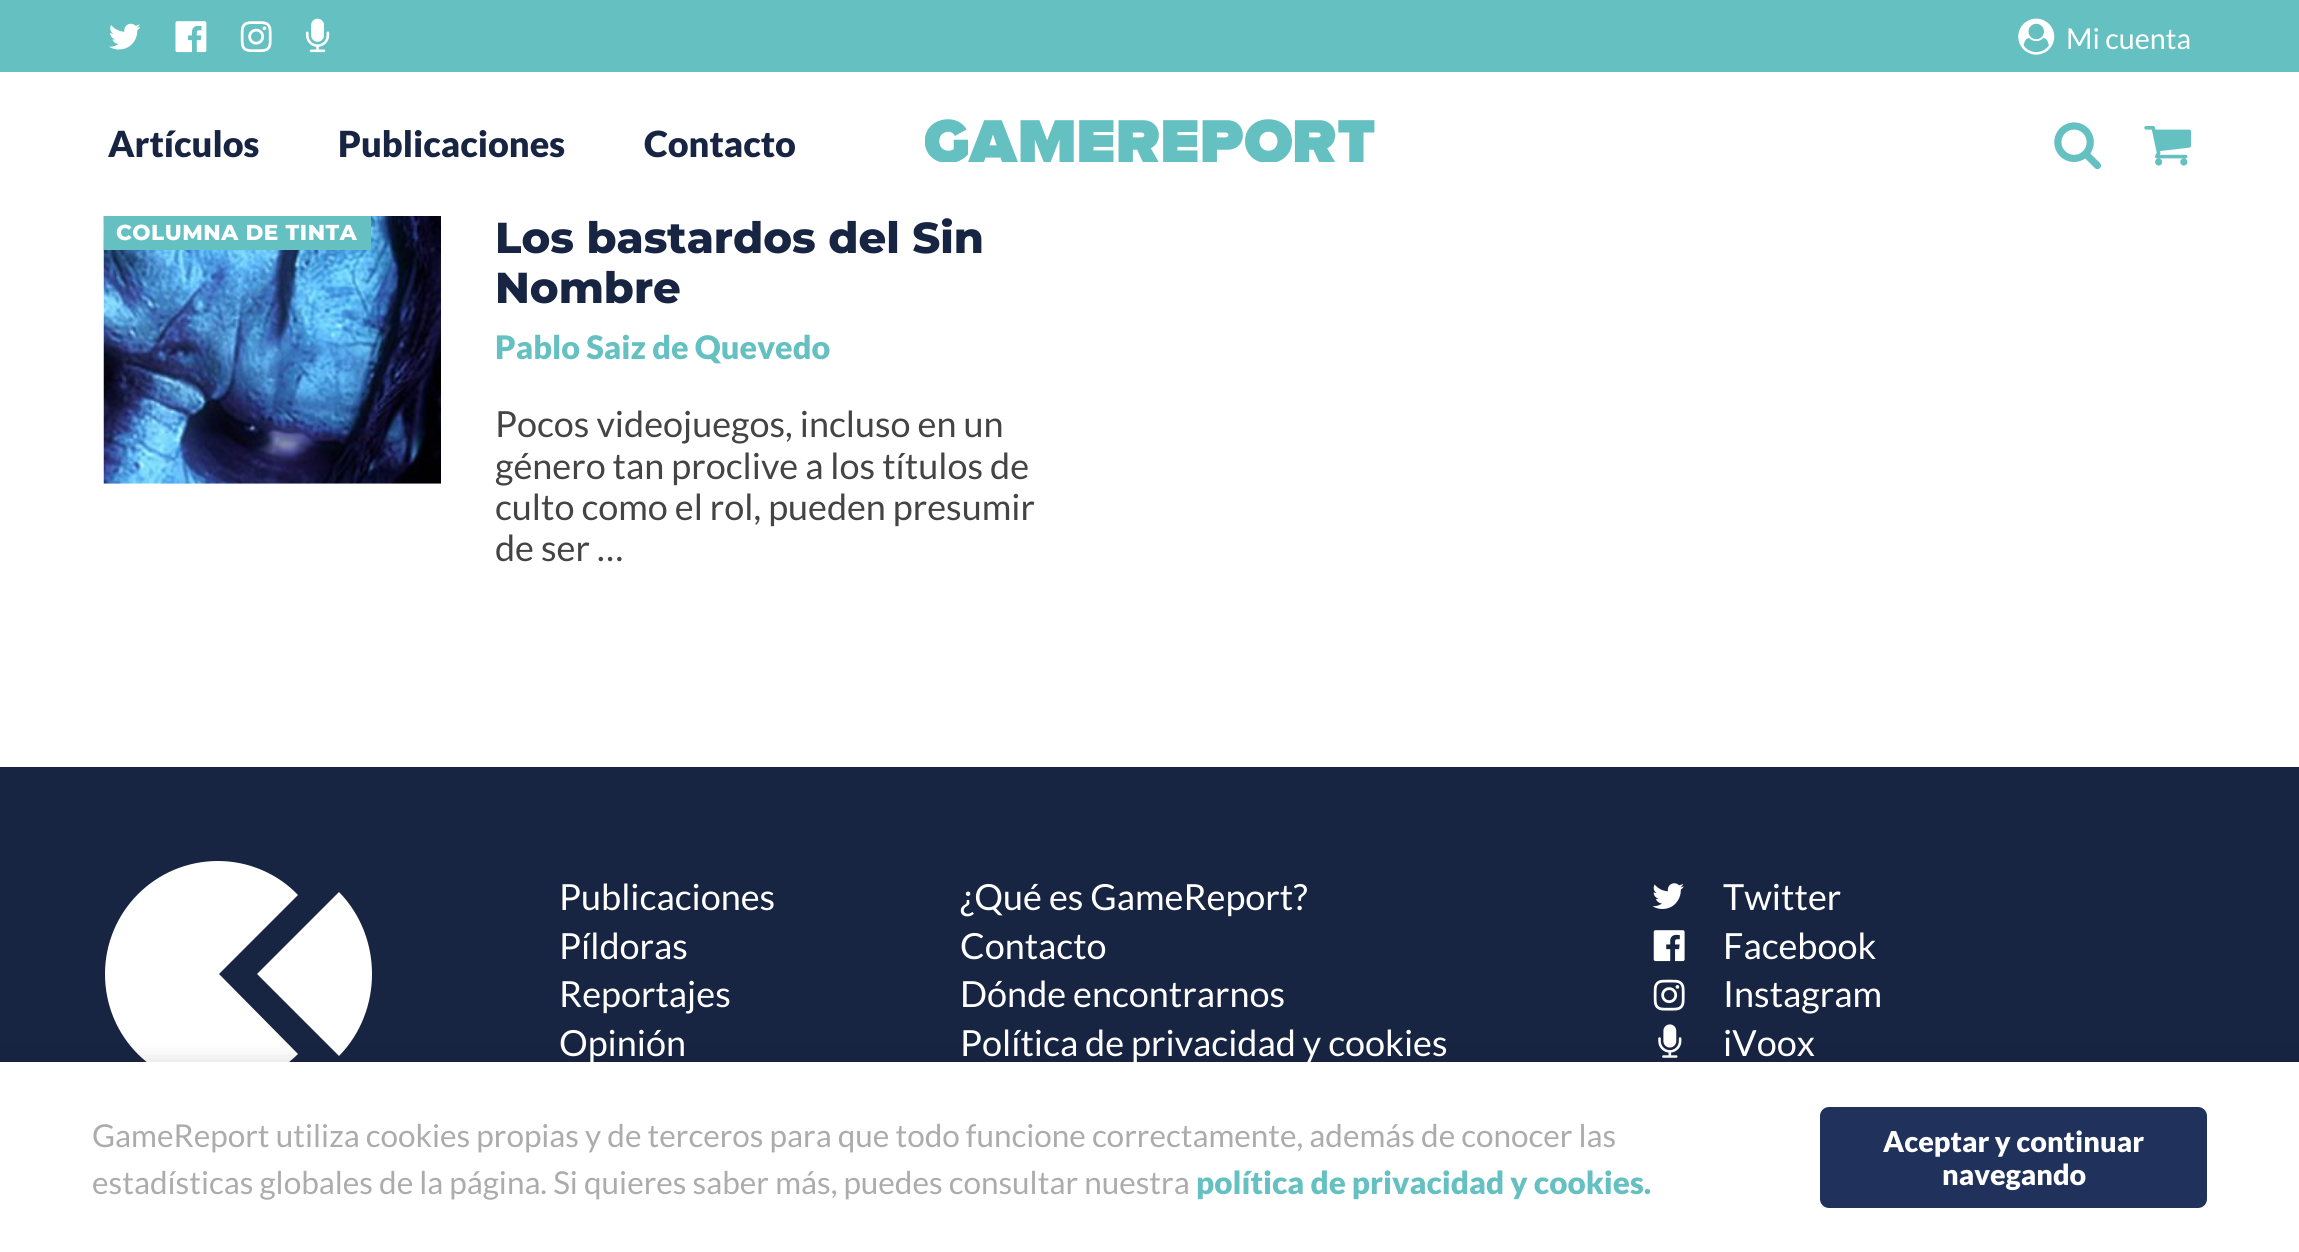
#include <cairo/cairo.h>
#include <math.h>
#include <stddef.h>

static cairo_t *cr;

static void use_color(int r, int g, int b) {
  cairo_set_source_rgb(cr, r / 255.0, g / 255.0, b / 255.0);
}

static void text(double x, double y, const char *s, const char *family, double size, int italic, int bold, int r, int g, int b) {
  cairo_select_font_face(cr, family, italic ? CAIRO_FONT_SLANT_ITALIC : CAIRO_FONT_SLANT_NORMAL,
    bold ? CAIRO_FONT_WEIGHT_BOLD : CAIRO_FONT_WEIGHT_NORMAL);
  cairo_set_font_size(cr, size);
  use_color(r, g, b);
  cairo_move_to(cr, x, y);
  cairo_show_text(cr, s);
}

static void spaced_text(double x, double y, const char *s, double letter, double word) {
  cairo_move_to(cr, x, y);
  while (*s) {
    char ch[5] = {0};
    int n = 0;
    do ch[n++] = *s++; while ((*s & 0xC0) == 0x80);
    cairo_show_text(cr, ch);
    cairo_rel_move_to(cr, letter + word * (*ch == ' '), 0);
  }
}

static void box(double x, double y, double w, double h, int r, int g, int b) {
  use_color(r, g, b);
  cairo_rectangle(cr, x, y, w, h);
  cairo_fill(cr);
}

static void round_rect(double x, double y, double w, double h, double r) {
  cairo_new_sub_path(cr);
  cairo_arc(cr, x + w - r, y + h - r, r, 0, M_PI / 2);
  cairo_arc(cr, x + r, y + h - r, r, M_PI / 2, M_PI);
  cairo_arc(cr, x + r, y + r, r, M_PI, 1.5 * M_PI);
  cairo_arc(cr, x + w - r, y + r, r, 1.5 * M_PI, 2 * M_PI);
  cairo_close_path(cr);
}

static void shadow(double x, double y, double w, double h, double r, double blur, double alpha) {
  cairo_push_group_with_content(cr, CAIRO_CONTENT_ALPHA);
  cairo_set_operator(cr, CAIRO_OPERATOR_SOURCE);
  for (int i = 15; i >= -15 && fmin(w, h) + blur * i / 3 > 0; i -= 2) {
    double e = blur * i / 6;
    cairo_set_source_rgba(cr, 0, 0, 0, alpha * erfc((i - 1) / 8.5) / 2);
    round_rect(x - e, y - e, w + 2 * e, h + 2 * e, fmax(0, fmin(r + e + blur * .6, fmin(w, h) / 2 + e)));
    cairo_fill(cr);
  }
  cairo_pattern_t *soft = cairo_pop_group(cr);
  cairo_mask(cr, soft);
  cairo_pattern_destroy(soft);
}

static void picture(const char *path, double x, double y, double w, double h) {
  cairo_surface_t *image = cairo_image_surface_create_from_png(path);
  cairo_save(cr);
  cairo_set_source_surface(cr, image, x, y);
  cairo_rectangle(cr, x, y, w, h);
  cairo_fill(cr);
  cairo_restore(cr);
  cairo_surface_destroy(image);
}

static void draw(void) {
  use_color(255, 255, 255);
  cairo_paint(cr);
  box(0, 0, 2299, 72, 101, 192, 193);
  picture("img_01.png", 109, 23, 32, 27);
  picture("img_02.png", 175, 21, 32, 32);
  picture("img_03.png", 240, 21, 32, 32);
  picture("img_04.png", 306, 18, 24, 35);
  picture("img_05.png", 2018, 18, 37, 37);
  picture("img_06.png", 925, 119, 450, 43);
  picture("img_07.png", 2054, 122, 47, 48);
  picture("img_08.png", 2144, 126, 48, 40);
  picture("img_09.png", 103, 216, 338, 268);
  box(104, 216, 267, 34, 101, 192, 193);
  box(0, 767, 2299, 295, 23, 36, 66);
  use_color(255, 255, 255);
  cairo_new_path(cr);
  cairo_move_to(cr, 298, 895);
  cairo_curve_to(cr, 278, 874, 249, 861, 218, 861);
  cairo_curve_to(cr, 155, 861, 105, 912, 105, 974);
  cairo_curve_to(cr, 105, 1037, 155, 1087, 218, 1087);
  cairo_curve_to(cr, 249, 1087, 278, 1074, 298, 1054);
  cairo_line_to(cr, 219, 974);
  cairo_close_path(cr);
  cairo_fill(cr);
  cairo_new_path(cr);
  cairo_move_to(cr, 339, 892);
  cairo_line_to(cr, 257, 974);
  cairo_line_to(cr, 339, 1056);
  cairo_curve_to(cr, 383, 1011, 383, 937, 339, 892);
  cairo_close_path(cr);
  cairo_fill(cr);
  picture("img_10.png", 1652, 883, 32, 26);
  picture("img_11.png", 1653, 930, 32, 32);
  picture("img_12.png", 1653, 979, 32, 32);
  picture("img_13.png", 1658, 1024, 24, 34);
  use_color(23, 23, 23);
  shadow(2, 1064, 2295, 187, 0, 11, 0.2);
  box(0, 1062, 2299, 190, 255, 255, 255);
  use_color(32, 50, 92);
  round_rect(1820, 1107, 387, 101, 9);
  cairo_fill(cr);
  text(2066, 49, "Mi cuenta", "Lato", 28.75, 0, 0, 255, 255, 255);
  text(108, 157, "Artículos", "Lato Black", 36, 0, 0, 23, 36, 66);
  text(338, 157, "Publicaciones", "Lato Black", 36, 0, 0, 23, 36, 66);
  text(644, 157, "Contacto", "Lato Black", 36, 0, 0, 23, 36, 66);
  cairo_select_font_face(cr, "Montserrat Thin", CAIRO_FONT_SLANT_NORMAL, CAIRO_FONT_WEIGHT_NORMAL);
  cairo_set_font_size(cr, 21.6);
  use_color(255, 255, 255);
  spaced_text(116, 240, "COLUMNA DE TINTA", 0.5, 0);
  text(495, 253, "Los bastardos del Sin", "Montserrat Thin", 43.25, 0, 0, 23, 36, 66);
  text(495, 303, "Nombre", "Montserrat Thin", 43.25, 0, 0, 23, 36, 66);
  text(495, 359, "Pablo Saiz de Quevedo", "Lato Black", 32.4, 0, 0, 101, 192, 193);
  text(495, 437, "Pocos videojuegos, incluso en un", "Lato", 36, 0, 0, 68, 68, 68);
  text(495, 479, "género tan proclive a los títulos de", "Lato", 36, 0, 0, 68, 68, 68);
  text(495, 520, "culto como el rol, pueden presumir", "Lato", 36, 0, 0, 68, 68, 68);
  text(495, 561, "de ser …", "Lato", 36, 0, 0, 68, 68, 68);
  text(559, 910, "Publicaciones", "Lato", 36, 0, 0, 255, 255, 255);
  text(559, 959, "Píldoras", "Lato", 36, 0, 0, 255, 255, 255);
  text(559, 1007, "Reportajes", "Lato", 36, 0, 0, 255, 255, 255);
  text(559, 1056, "Opinión", "Lato", 36, 0, 0, 255, 255, 255);
  text(960, 910, "¿Qué es GameReport?", "Lato", 36, 0, 0, 255, 255, 255);
  text(960, 959, "Contacto", "Lato", 36, 0, 0, 255, 255, 255);
  text(960, 1007, "Dónde encontrarnos", "Lato", 36, 0, 0, 255, 255, 255);
  text(960, 1056, "Política de privacidad y cookies", "Lato", 36, 0, 0, 255, 255, 255);
  text(1723, 910, "Twitter", "Lato", 36, 0, 0, 255, 255, 255);
  text(1723, 959, "Facebook", "Lato", 36, 0, 0, 255, 255, 255);
  text(1723, 1007, "Instagram", "Lato", 36, 0, 0, 255, 255, 255);
  text(1723, 1056, "iVoox", "Lato", 36, 0, 0, 255, 255, 255);
  text(92, 1147, "GameReport utiliza cookies propias y de terceros para que todo funcione correctamente, además de conocer las", "Lato", 31.5, 0, 0, 172, 172, 172);
  text(92, 1194, "estadísticas globales de la página. Si quieres saber más, puedes consultar nuestra", "Lato", 31.5, 0, 0, 172, 172, 172);
  text(1196, 1194, "política de privacidad y cookies.", "Lato Black", 31.5, 0, 0, 101, 192, 193);
  text(1883, 1152, "Aceptar y continuar", "Lato Black", 28.75, 0, 0, 255, 255, 255);
  text(1942, 1185, "navegando", "Lato Black", 28.75, 0, 0, 255, 255, 255);
}

int main(void) {
  cairo_surface_t *surface = cairo_image_surface_create(CAIRO_FORMAT_RGB24, 2299, 1252);
  cr = cairo_create(surface);
  cairo_font_options_t *options = cairo_font_options_create();
  cairo_font_options_set_hint_metrics(options, CAIRO_HINT_METRICS_OFF);
  cairo_font_options_set_hint_style(options, CAIRO_HINT_STYLE_NONE);
  cairo_set_font_options(cr, options);
  cairo_set_miter_limit(cr, 4);
  draw();
  cairo_surface_write_to_png(surface, "out.png");
  cairo_font_options_destroy(options);
  cairo_destroy(cr);
  cairo_surface_destroy(surface);
  return 0;
}
